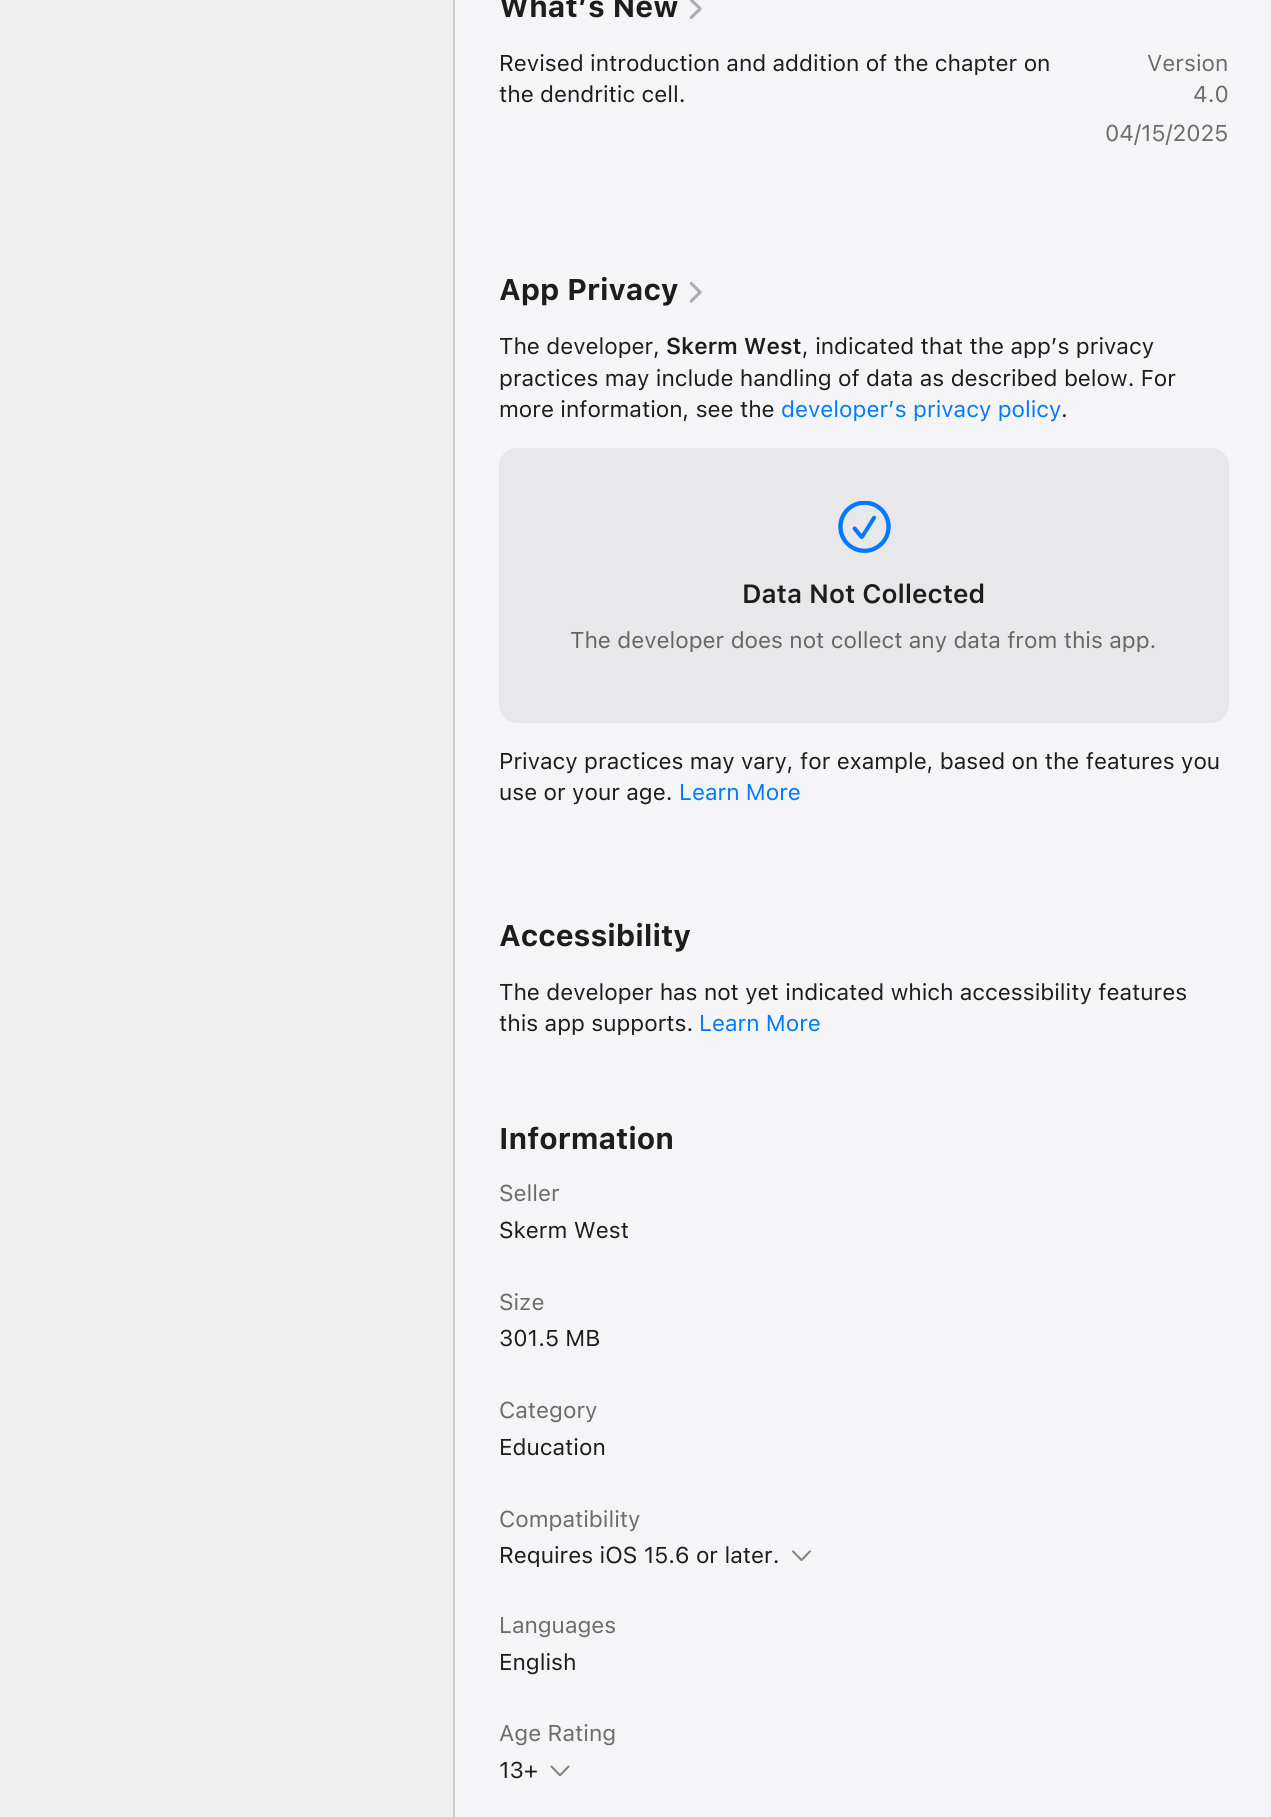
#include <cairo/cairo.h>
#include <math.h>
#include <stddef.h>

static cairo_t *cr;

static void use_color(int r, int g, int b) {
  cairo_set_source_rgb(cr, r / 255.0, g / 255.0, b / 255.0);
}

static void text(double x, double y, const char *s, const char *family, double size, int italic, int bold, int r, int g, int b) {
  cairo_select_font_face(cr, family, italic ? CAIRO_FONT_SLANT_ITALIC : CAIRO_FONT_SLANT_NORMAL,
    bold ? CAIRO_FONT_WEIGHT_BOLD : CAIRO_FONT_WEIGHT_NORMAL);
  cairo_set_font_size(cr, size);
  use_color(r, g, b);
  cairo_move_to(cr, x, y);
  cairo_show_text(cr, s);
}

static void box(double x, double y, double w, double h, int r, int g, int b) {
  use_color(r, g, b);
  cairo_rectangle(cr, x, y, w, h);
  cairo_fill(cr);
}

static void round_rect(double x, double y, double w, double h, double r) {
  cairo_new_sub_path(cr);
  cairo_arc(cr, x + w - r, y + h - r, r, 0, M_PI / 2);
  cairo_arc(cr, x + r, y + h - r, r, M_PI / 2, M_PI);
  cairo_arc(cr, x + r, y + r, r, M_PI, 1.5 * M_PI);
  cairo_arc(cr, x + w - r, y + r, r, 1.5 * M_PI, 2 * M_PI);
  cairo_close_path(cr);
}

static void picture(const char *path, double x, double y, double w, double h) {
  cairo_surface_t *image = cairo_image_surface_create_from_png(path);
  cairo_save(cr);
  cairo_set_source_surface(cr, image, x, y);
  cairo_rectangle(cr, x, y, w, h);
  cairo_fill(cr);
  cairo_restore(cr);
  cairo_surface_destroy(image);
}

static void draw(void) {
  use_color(245, 245, 247);
  cairo_paint(cr);
  box(0, 0, 453, 1817, 239, 239, 240);
  box(453, 0, 2, 1817, 203, 203, 204);
  picture("img_01.png", 690, 0, 12, 19);
  picture("img_02.png", 690, 282, 12, 21);
  use_color(232, 232, 235);
  round_rect(499, 448, 730, 275, 18);
  cairo_fill(cr);
  picture("img_03.png", 838, 501, 53, 52);
  picture("img_04.png", 792, 1550, 19, 11);
  picture("img_05.png", 550, 1765, 20, 12);
  text(499, 17, "What’s New", "SF", 29.75, 0, 1, 29, 29, 30);
  text(499, 71, "Revised introduction and addition of the chapter on", "SF", 22.75, 0, 0, 29, 29, 30);
  text(499, 102, "the dendritic cell.", "SF", 22.75, 0, 0, 29, 29, 30);
  text(1147, 71, "Version", "SF", 22.75, 0, 0, 108, 108, 109);
  text(1193, 102, "4.0", "SF", 22.75, 0, 0, 108, 108, 109);
  text(1105, 141, "04/15/2025", "SF", 22.75, 0, 0, 108, 108, 109);
  text(499, 300, "App Privacy", "SF", 29.75, 0, 1, 29, 29, 30);
  text(499, 354, "The developer,", "SF", 22.75, 0, 0, 29, 29, 30);
  text(666, 354, "Skerm West", "SF SemiBold", 22.75, 0, 0, 29, 29, 30);
  text(802, 354, ", indicated that the app’s privacy", "SF", 22.75, 0, 0, 29, 29, 30);
  text(499, 386, "practices may include handling of data as described below. For", "SF", 22.75, 0, 0, 29, 29, 30);
  text(499, 417, "more information, see the", "SF", 22.75, 0, 0, 29, 29, 30);
  text(781, 417, "developer’s privacy policy", "SF", 22.75, 0, 0, 0, 122, 255);
  text(1061, 417, ".", "SF", 22.75, 0, 0, 29, 29, 30);
  text(742, 603, "Data Not Collected", "SF SemiBold", 26.25, 0, 0, 29, 29, 30);
  text(570, 648, "The developer does not collect any data from this app.", "SF", 22.75, 0, 0, 102, 102, 103);
  text(499, 769, "Privacy practices may vary, for example, based on the features you", "SF", 22.75, 0, 0, 29, 29, 30);
  text(499, 800, "use or your age.", "SF", 22.75, 0, 0, 29, 29, 30);
  text(679, 800, "Learn More", "SF", 22.75, 0, 0, 0, 122, 255);
  text(499, 946, "Accessibility", "SF", 29.75, 0, 1, 29, 29, 30);
  text(499, 1000, "The developer has not yet indicated which accessibility features", "SF", 22.75, 0, 0, 29, 29, 30);
  text(499, 1031, "this app supports.", "SF", 22.75, 0, 0, 29, 29, 30);
  text(699, 1031, "Learn More", "SF", 22.75, 0, 0, 0, 122, 255);
  text(499, 1149, "Information", "SF", 29.75, 0, 1, 29, 29, 30);
  text(499, 1201, "Seller", "SF", 22.75, 0, 0, 108, 108, 109);
  text(499, 1238, "Skerm West", "SF", 22.75, 0, 0, 29, 29, 30);
  text(499, 1310, "Size", "SF", 22.75, 0, 0, 108, 108, 109);
  text(499, 1346, "301.5 MB", "SF", 22.75, 0, 0, 29, 29, 30);
  text(499, 1418, "Category", "SF", 22.75, 0, 0, 108, 108, 109);
  text(499, 1455, "Education", "SF", 22.75, 0, 0, 29, 29, 30);
  text(499, 1527, "Compatibility", "SF", 22.75, 0, 0, 108, 108, 109);
  text(499, 1563, "Requires iOS 15.6 or later.", "SF", 22.75, 0, 0, 29, 29, 30);
  text(499, 1633, "Languages", "SF", 22.75, 0, 0, 108, 108, 109);
  text(499, 1670, "English", "SF", 22.75, 0, 0, 29, 29, 30);
  text(499, 1741, "Age Rating", "SF", 22.75, 0, 0, 108, 108, 109);
  text(499, 1778, "13+", "SF", 22.75, 0, 0, 29, 29, 30);
}

int main(void) {
  cairo_surface_t *surface = cairo_image_surface_create(CAIRO_FORMAT_RGB24, 1271, 1817);
  cr = cairo_create(surface);
  cairo_font_options_t *options = cairo_font_options_create();
  cairo_font_options_set_hint_metrics(options, CAIRO_HINT_METRICS_OFF);
  cairo_font_options_set_hint_style(options, CAIRO_HINT_STYLE_NONE);
  cairo_set_font_options(cr, options);
  cairo_set_miter_limit(cr, 4);
  draw();
  cairo_surface_write_to_png(surface, "out.png");
  cairo_font_options_destroy(options);
  cairo_destroy(cr);
  cairo_surface_destroy(surface);
  return 0;
}
